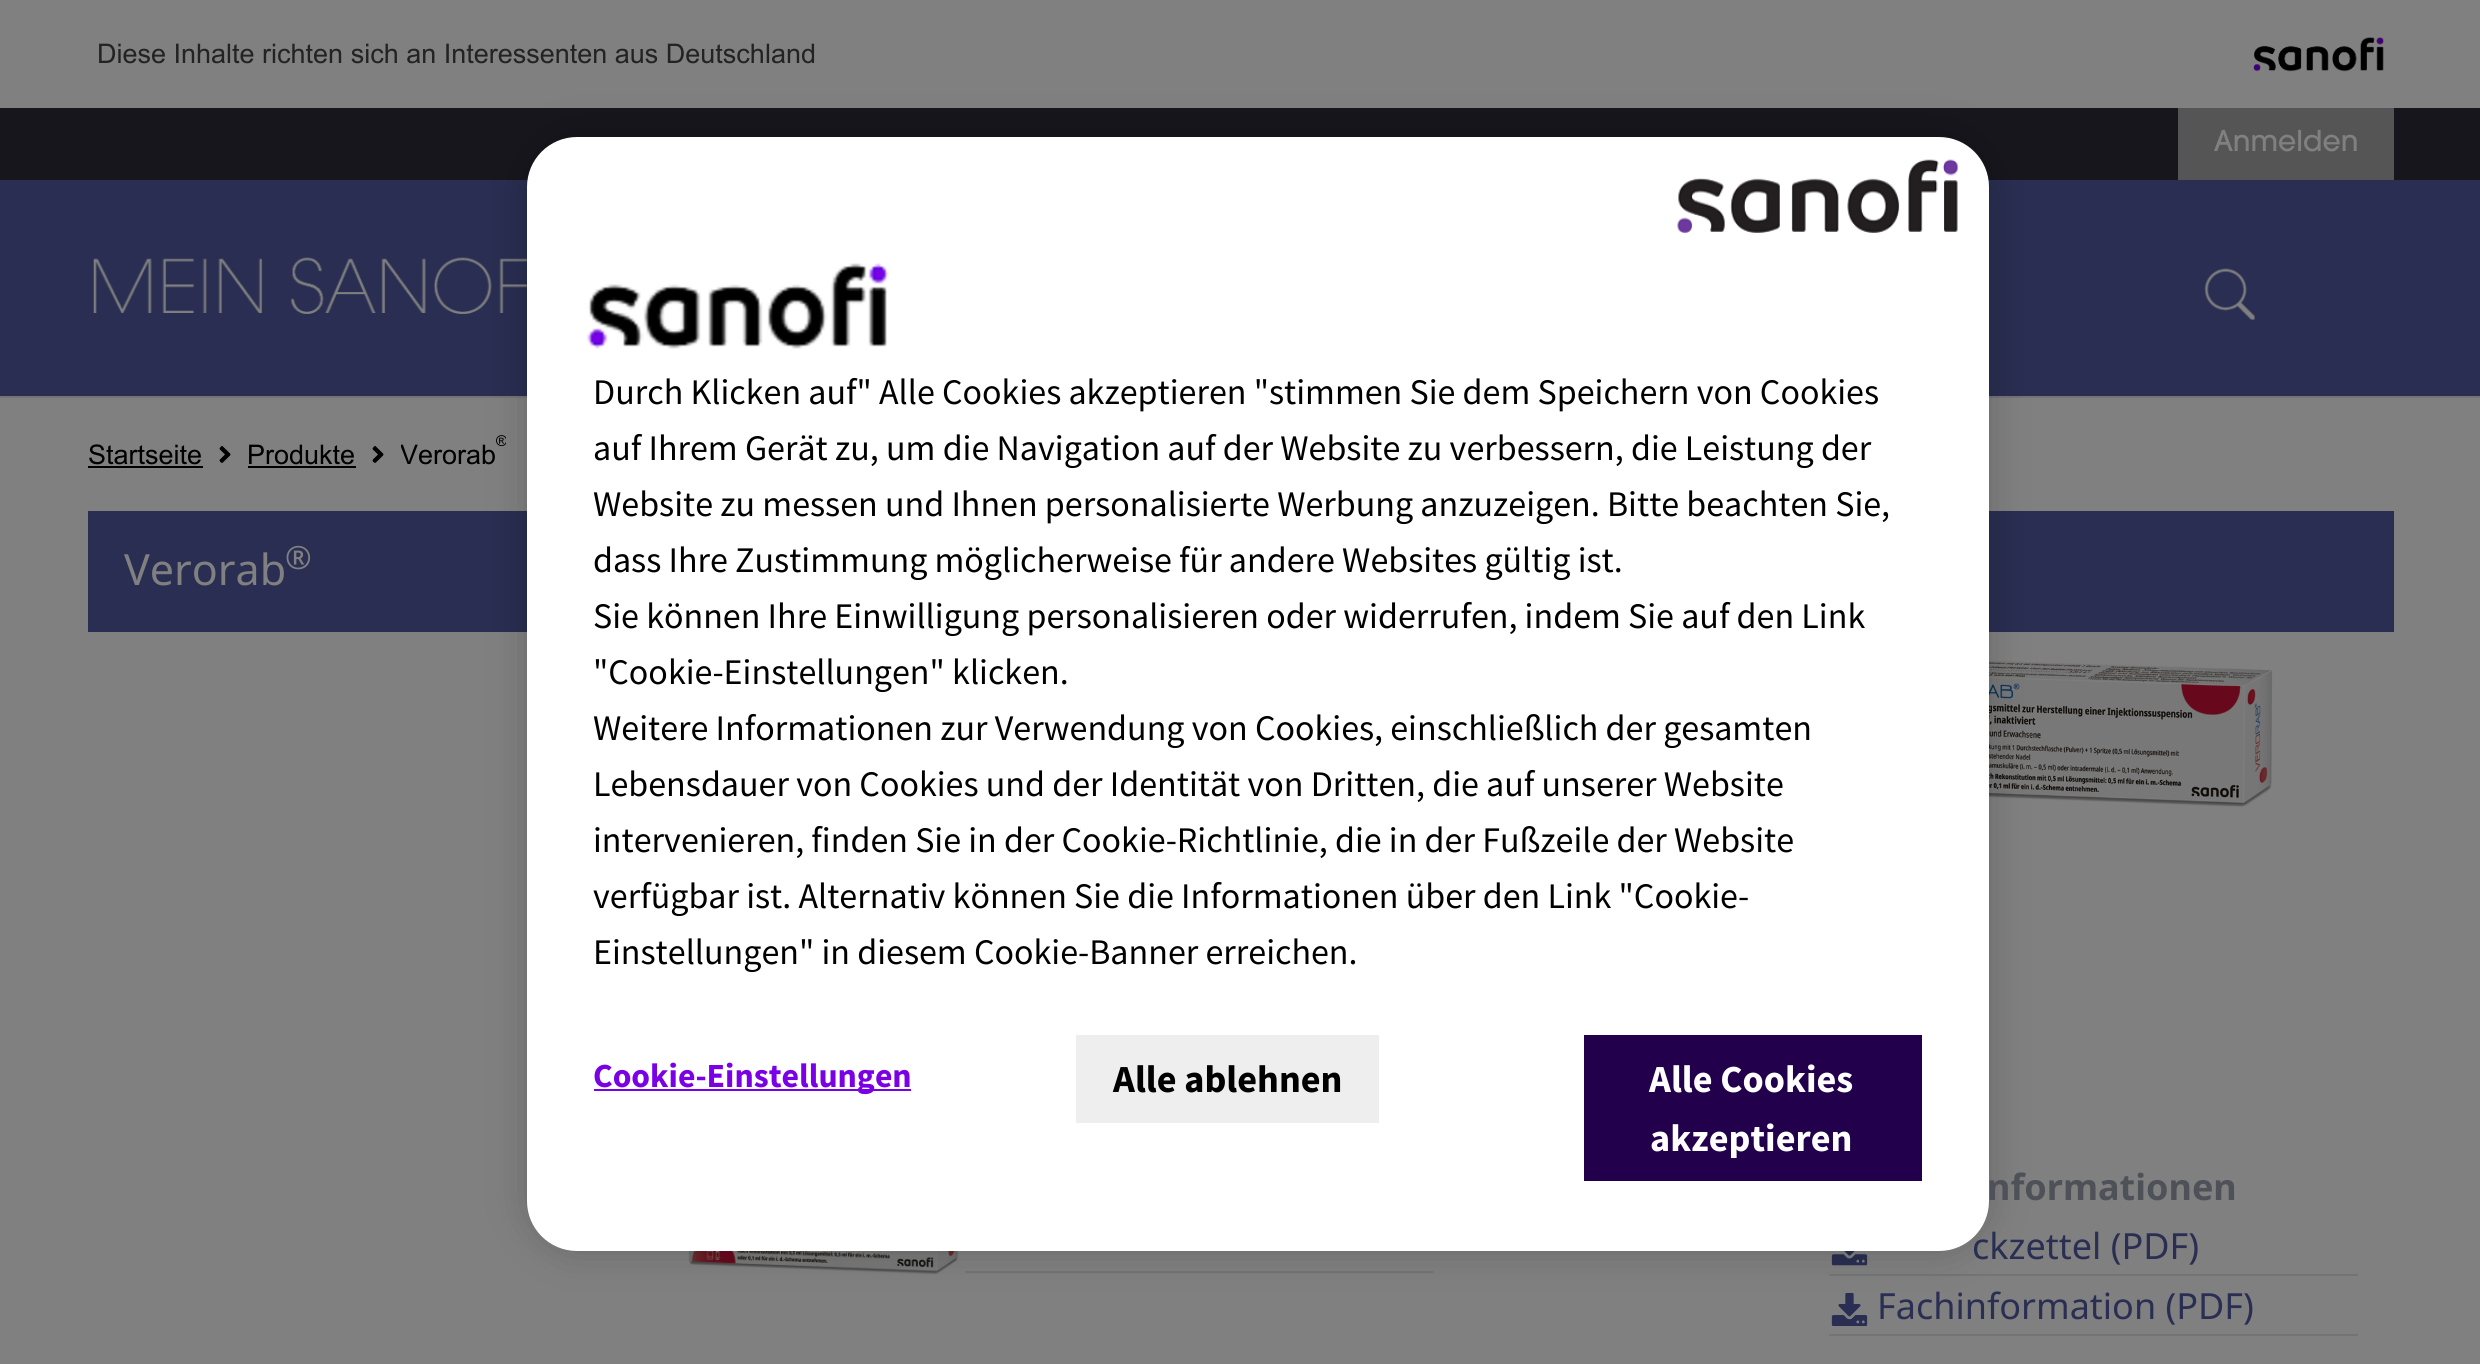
#include <cairo/cairo.h>
#include <math.h>
#include <stddef.h>

static cairo_t *cr;

static void use_color(int r, int g, int b) {
  cairo_set_source_rgb(cr, r / 255.0, g / 255.0, b / 255.0);
}

static void text(double x, double y, const char *s, const char *family, double size, int italic, int bold, int r, int g, int b) {
  cairo_select_font_face(cr, family, italic ? CAIRO_FONT_SLANT_ITALIC : CAIRO_FONT_SLANT_NORMAL,
    bold ? CAIRO_FONT_WEIGHT_BOLD : CAIRO_FONT_WEIGHT_NORMAL);
  cairo_set_font_size(cr, size);
  use_color(r, g, b);
  cairo_move_to(cr, x, y);
  cairo_show_text(cr, s);
}

static void box(double x, double y, double w, double h, int r, int g, int b) {
  use_color(r, g, b);
  cairo_rectangle(cr, x, y, w, h);
  cairo_fill(cr);
}

static void round_rect(double x, double y, double w, double h, double r) {
  cairo_new_sub_path(cr);
  cairo_arc(cr, x + w - r, y + h - r, r, 0, M_PI / 2);
  cairo_arc(cr, x + r, y + h - r, r, M_PI / 2, M_PI);
  cairo_arc(cr, x + r, y + r, r, M_PI, 1.5 * M_PI);
  cairo_arc(cr, x + w - r, y + r, r, 1.5 * M_PI, 2 * M_PI);
  cairo_close_path(cr);
}

static void shadow(double x, double y, double w, double h, double r, double blur, double alpha) {
  cairo_push_group_with_content(cr, CAIRO_CONTENT_ALPHA);
  cairo_set_operator(cr, CAIRO_OPERATOR_SOURCE);
  for (int i = 15; i >= -15 && fmin(w, h) + blur * i / 3 > 0; i -= 2) {
    double e = blur * i / 6;
    cairo_set_source_rgba(cr, 0, 0, 0, alpha * erfc((i - 1) / 8.5) / 2);
    round_rect(x - e, y - e, w + 2 * e, h + 2 * e, fmax(0, fmin(r + e + blur * .6, fmin(w, h) / 2 + e)));
    cairo_fill(cr);
  }
  cairo_pattern_t *soft = cairo_pop_group(cr);
  cairo_mask(cr, soft);
  cairo_pattern_destroy(soft);
}

static void picture(const char *path, double x, double y, double w, double h) {
  cairo_surface_t *image = cairo_image_surface_create_from_png(path);
  cairo_save(cr);
  cairo_set_source_surface(cr, image, x, y);
  cairo_rectangle(cr, x, y, w, h);
  cairo_fill(cr);
  cairo_restore(cr);
  cairo_surface_destroy(image);
}

static void draw(void) {
  use_color(128, 128, 128);
  cairo_paint(cr);
  picture("img_01.png", 2253, 37, 131, 35);
  box(0, 108, 2480, 72, 22, 22, 28);
  box(2178, 108, 216, 72, 85, 85, 85);
  box(0, 180, 2480, 216, 41, 46, 82);
  box(0, 396, 2480, 2, 115, 116, 118);
  picture("img_02.png", 93, 257, 434, 57);
  picture("img_03.png", 2204, 268, 51, 52);
  box(88, 466, 115, 2, 0, 0, 0);
  picture("img_04.png", 219, 446, 12, 17);
  box(248, 466, 108, 2, 0, 0, 0);
  picture("img_04.png", 372, 446, 12, 17);
  box(88, 511, 2306, 121, 41, 46, 82);
  picture("img_07.png", 1989, 660, 284, 147);
  box(963, 1271, 470, 2, 115, 116, 118);
  picture("img_08.png", 688, 1251, 278, 24);
  box(1829, 1274, 529, 2, 115, 116, 118);
  picture("img_09.png", 1831, 1251, 37, 15);
  picture("img_10.png", 1831, 1293, 37, 33);
  use_color(0, 0, 0);
  shadow(527, 137, 1462, 1114, 50, 20, 0.2);
  box(1829, 1334, 529, 2, 115, 116, 118);
  text(97, 63, "Diese Inhalte richten sich an Interessenten aus Deutschland", "Arial", 27, 0, 0, 35, 35, 35);
  text(2214, 151, "Anmelden", "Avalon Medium", 31.5, 0, 0, 128, 128, 128);
  text(88, 464, "Startseite", "Arial", 27, 0, 0, 0, 0, 0);
  text(247, 464, "Produkte", "Arial", 27, 0, 0, 0, 0, 0);
  cairo_save(cr);
  cairo_rectangle(cr, 401, 434, 105, 41);
  cairo_clip(cr);
  text(496, 446, "®", "Arial", 15, 0, 0, 0, 0, 0);
  text(400, 464, "Verorab", "Arial", 27, 0, 0, 0, 0, 0);
  cairo_restore(cr);
  text(124, 585, "Verorab", "Noto Sans", 43, 0, 0, 128, 128, 128);
  text(285, 569, "®", "Noto Sans", 32, 0, 0, 128, 128, 128);
  text(1987, 1200, "nformationen", "Noto Sans", 36, 0, 1, 78, 82, 88);
  text(1972, 1259, "ckzettel (PDF)", "Noto Sans", 36, 0, 0, 41, 46, 82);
  use_color(255, 255, 255);
  round_rect(527, 137, 1462, 1114, 50);
  cairo_fill(cr);
  box(1076, 1035, 303, 88, 238, 238, 238);
  text(1113, 1092, "Alle ablehnen", "Source Sans Pro", 38.25, 0, 1, 0, 0, 0);
  box(1584, 1035, 338, 146, 34, 0, 76);
  text(1650, 1151, "akzeptieren", "Source Sans Pro", 38.25, 0, 1, 255, 255, 255);
  text(1649, 1092, "Alle Cookies", "Source Sans Pro", 38.25, 0, 1, 255, 255, 255);
  box(594, 1089, 317, 2, 122, 0, 230);
  text(593, 1087, "Cookie-Einstellungen", "Source Sans Pro", 33.75, 0, 1, 122, 0, 230);
  picture("img_06.png", 586, 263, 303, 86);
  text(593, 964, "Einstellungen\" in diesem Cookie-Banner erreichen.", "Source Sans Pro", 36, 0, 0, 0, 0, 0);
  text(593, 908, "verfügbar ist. Alternativ können Sie die Informationen über den Link \"Cookie-", "Source Sans Pro", 36, 0, 0, 0, 0, 0);
  text(593, 852, "intervenieren, finden Sie in der Cookie-Richtlinie, die in der Fußzeile der Website", "Source Sans Pro", 36, 0, 0, 0, 0, 0);
  text(593, 796, "Lebensdauer von Cookies und der Identität von Dritten, die auf unserer Website", "Source Sans Pro", 36, 0, 0, 0, 0, 0);
  text(593, 740, "Weitere Informationen zur Verwendung von Cookies, einschließlich der gesamten", "Source Sans Pro", 36, 0, 0, 0, 0, 0);
  text(593, 684, "\"Cookie-Einstellungen\" klicken.", "Source Sans Pro", 36, 0, 0, 0, 0, 0);
  text(593, 628, "Sie können Ihre Einwilligung personalisieren oder widerrufen, indem Sie auf den Link", "Source Sans Pro", 36, 0, 0, 0, 0, 0);
  text(593, 572, "dass Ihre Zustimmung möglicherweise für andere Websites gültig ist.", "Source Sans Pro", 36, 0, 0, 0, 0, 0);
  text(593, 516, "Website zu messen und Ihnen personalisierte Werbung anzuzeigen. Bitte beachten Sie,", "Source Sans Pro", 36, 0, 0, 0, 0, 0);
  text(593, 460, "auf Ihrem Gerät zu, um die Navigation auf der Website zu verbessern, die Leistung der", "Source Sans Pro", 36, 0, 0, 0, 0, 0);
  text(593, 404, "Durch Klicken auf\" Alle Cookies akzeptieren \"stimmen Sie dem Speichern von Cookies", "Source Sans Pro", 36, 0, 0, 0, 0, 0);
  picture("img_05.png", 1677, 159, 282, 74);
  text(1877, 1319, "Fachinformation (PDF)", "Noto Sans", 36, 0, 0, 41, 46, 82);
}

int main(void) {
  cairo_surface_t *surface = cairo_image_surface_create(CAIRO_FORMAT_RGB24, 2480, 1364);
  cr = cairo_create(surface);
  cairo_font_options_t *options = cairo_font_options_create();
  cairo_font_options_set_hint_metrics(options, CAIRO_HINT_METRICS_OFF);
  cairo_font_options_set_hint_style(options, CAIRO_HINT_STYLE_NONE);
  cairo_set_font_options(cr, options);
  cairo_set_miter_limit(cr, 4);
  draw();
  cairo_surface_write_to_png(surface, "out.png");
  cairo_font_options_destroy(options);
  cairo_destroy(cr);
  cairo_surface_destroy(surface);
  return 0;
}
